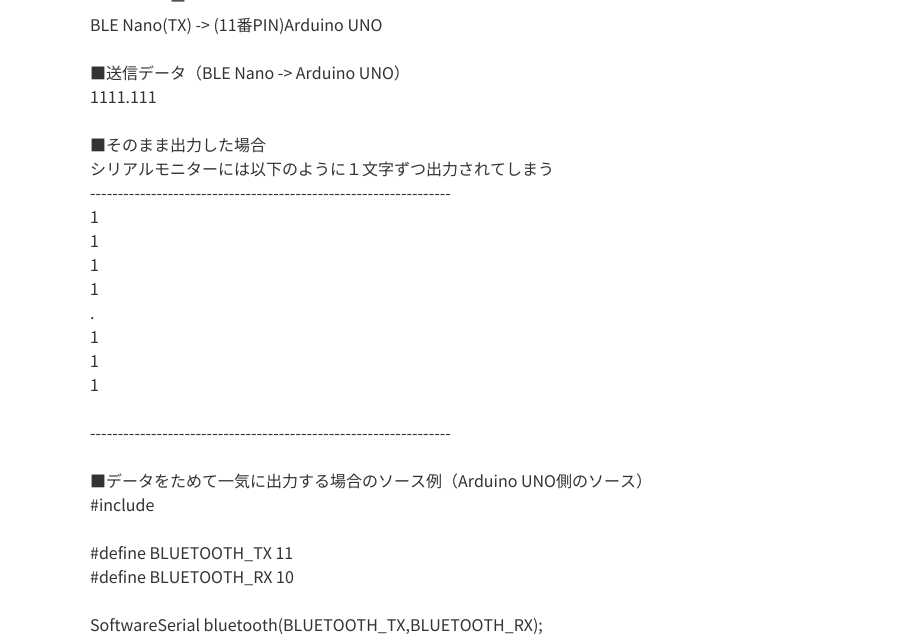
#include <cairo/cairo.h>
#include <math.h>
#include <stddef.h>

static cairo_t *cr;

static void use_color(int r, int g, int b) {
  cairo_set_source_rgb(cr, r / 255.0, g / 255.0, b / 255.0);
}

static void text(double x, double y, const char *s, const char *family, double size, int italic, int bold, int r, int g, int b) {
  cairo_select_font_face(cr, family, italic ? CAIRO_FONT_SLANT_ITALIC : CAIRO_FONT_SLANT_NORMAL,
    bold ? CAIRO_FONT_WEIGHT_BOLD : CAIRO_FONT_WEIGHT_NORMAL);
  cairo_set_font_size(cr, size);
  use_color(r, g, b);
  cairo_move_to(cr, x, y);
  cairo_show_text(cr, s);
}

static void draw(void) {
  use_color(255, 255, 255);
  cairo_paint(cr);
  text(170, 7, "ー", "Noto Sans JP Thin", 16, 0, 0, 51, 51, 51);
  text(90, 31, "BLE Nano(TX) -> (11番PIN)Arduino UNO", "Noto Sans JP Thin", 16, 0, 0, 51, 51, 51);
  text(90, 79, "■送信データ（BLE Nano -> Arduino UNO）", "Noto Sans JP Thin", 16, 0, 0, 51, 51, 51);
  text(90, 103, "1111.111", "Noto Sans JP Thin", 16, 0, 0, 51, 51, 51);
  text(90, 151, "■そのまま出力した場合", "Noto Sans JP Thin", 16, 0, 0, 51, 51, 51);
  text(90, 175, "シリアルモニターには以下のように１文字ずつ出力されてしまう", "Noto Sans JP Thin", 16, 0, 0, 51, 51, 51);
  text(90, 199, "-----------------------------------------------------------------", "Noto Sans JP Thin", 16, 0, 0, 51, 51, 51);
  text(90, 223, "1", "Noto Sans JP Thin", 16, 0, 0, 51, 51, 51);
  text(90, 247, "1", "Noto Sans JP Thin", 16, 0, 0, 51, 51, 51);
  text(90, 271, "1", "Noto Sans JP Thin", 16, 0, 0, 51, 51, 51);
  text(90, 295, "1", "Noto Sans JP Thin", 16, 0, 0, 51, 51, 51);
  text(90, 319, ".", "Noto Sans JP Thin", 16, 0, 0, 51, 51, 51);
  text(90, 343, "1", "Noto Sans JP Thin", 16, 0, 0, 51, 51, 51);
  text(90, 367, "1", "Noto Sans JP Thin", 16, 0, 0, 51, 51, 51);
  text(90, 391, "1", "Noto Sans JP Thin", 16, 0, 0, 51, 51, 51);
  text(90, 439, "-----------------------------------------------------------------", "Noto Sans JP Thin", 16, 0, 0, 51, 51, 51);
  text(90, 487, "■データをためて一気に出力する場合のソース例（Arduino UNO側のソース）", "Noto Sans JP Thin", 16, 0, 0, 51, 51, 51);
  text(90, 511, "#include", "Noto Sans JP Thin", 16, 0, 0, 51, 51, 51);
  text(90, 559, "#define BLUETOOTH_TX 11", "Noto Sans JP Thin", 16, 0, 0, 51, 51, 51);
  text(90, 583, "#define BLUETOOTH_RX 10", "Noto Sans JP Thin", 16, 0, 0, 51, 51, 51);
  text(90, 631, "SoftwareSerial bluetooth(BLUETOOTH_TX,BLUETOOTH_RX);", "Noto Sans JP Thin", 16, 0, 0, 51, 51, 51);
}

int main(void) {
  cairo_surface_t *surface = cairo_image_surface_create(CAIRO_FORMAT_RGB24, 919, 640);
  cr = cairo_create(surface);
  cairo_font_options_t *options = cairo_font_options_create();
  cairo_font_options_set_hint_metrics(options, CAIRO_HINT_METRICS_OFF);
  cairo_font_options_set_hint_style(options, CAIRO_HINT_STYLE_NONE);
  cairo_set_font_options(cr, options);
  cairo_set_miter_limit(cr, 4);
  draw();
  cairo_surface_write_to_png(surface, "out.png");
  cairo_font_options_destroy(options);
  cairo_destroy(cr);
  cairo_surface_destroy(surface);
  return 0;
}
